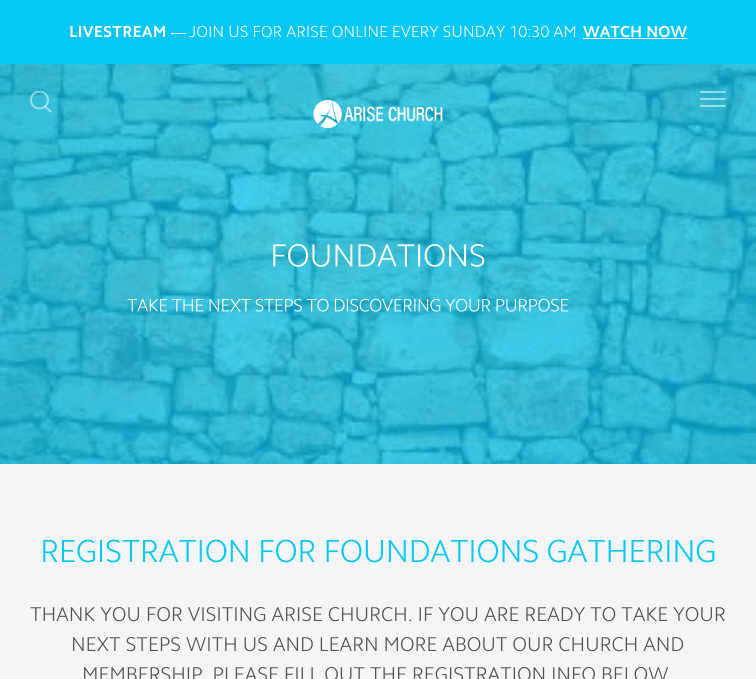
#include <cairo/cairo.h>
#include <math.h>
#include <stddef.h>

static cairo_t *cr;

static void use_color(int r, int g, int b) {
  cairo_set_source_rgb(cr, r / 255.0, g / 255.0, b / 255.0);
}

static void box(double x, double y, double w, double h, int r, int g, int b) {
  use_color(r, g, b);
  cairo_rectangle(cr, x, y, w, h);
  cairo_fill(cr);
}

static void round_rect(double x, double y, double w, double h, double r) {
  cairo_new_sub_path(cr);
  cairo_arc(cr, x + w - r, y + h - r, r, 0, M_PI / 2);
  cairo_arc(cr, x + r, y + h - r, r, M_PI / 2, M_PI);
  cairo_arc(cr, x + r, y + r, r, M_PI, 1.5 * M_PI);
  cairo_arc(cr, x + w - r, y + r, r, 1.5 * M_PI, 2 * M_PI);
  cairo_close_path(cr);
}

static void picture(const char *path, double x, double y, double w, double h) {
  cairo_surface_t *image = cairo_image_surface_create_from_png(path);
  cairo_save(cr);
  cairo_set_source_surface(cr, image, x, y);
  cairo_rectangle(cr, x, y, w, h);
  cairo_fill(cr);
  cairo_restore(cr);
  cairo_surface_destroy(image);
}

static void draw(void) {
  use_color(243, 245, 247);
  cairo_paint(cr);
  box(0, 0, 756, 64, 7, 199, 247);
  picture("img_01.png", 70, 25, 95, 13);
  box(171, 33, 15, 1, 255, 255, 255);
  picture("img_02.png", 189, 25, 387, 13);
  picture("img_03.png", 583, 25, 104, 13);
  box(583, 38, 104, 1, 255, 255, 255);
  picture("img_04.png", 0, 64, 756, 400);
  cairo_save(cr);
  cairo_rectangle(cr, 30, 91, 22, 22);
  cairo_clip(cr);
  cairo_arc(cr, 39.5, 100, 8.5, 0, 2 * M_PI);
  cairo_set_source_rgba(cr, 1, 1, 1, 0.5);
  cairo_stroke(cr);
  cairo_restore(cr);
  cairo_new_path(cr);
  cairo_move_to(cr, 45, 106.5);
  cairo_line_to(cr, 50.5, 111.5);
  cairo_set_source_rgba(cr, 1, 1, 1, 0.5);
  cairo_set_line_cap(cr, CAIRO_LINE_CAP_ROUND);
  cairo_stroke(cr);
  picture("img_05.png", 313, 99, 130, 30);
  round_rect(700, 91, 26, 2, 1);
  cairo_fill(cr);
  round_rect(700, 98, 26, 2, 1);
  cairo_fill(cr);
  round_rect(700, 105, 26, 2, 1);
  cairo_fill(cr);
  picture("img_06.png", 273, 244, 212, 23);
  picture("img_07.png", 127, 298, 442, 14);
  picture("img_08.png", 43, 539, 672, 24);
  picture("img_09.png", 30, 607, 695, 15);
  picture("img_10.png", 73, 637, 611, 15);
  picture("img_11.png", 84, 667, 584, 12);
}

int main(void) {
  cairo_surface_t *surface = cairo_image_surface_create(CAIRO_FORMAT_RGB24, 756, 679);
  cr = cairo_create(surface);
  cairo_font_options_t *options = cairo_font_options_create();
  cairo_font_options_set_hint_metrics(options, CAIRO_HINT_METRICS_OFF);
  cairo_font_options_set_hint_style(options, CAIRO_HINT_STYLE_NONE);
  cairo_set_font_options(cr, options);
  cairo_set_miter_limit(cr, 4);
  draw();
  cairo_surface_write_to_png(surface, "out.png");
  cairo_font_options_destroy(options);
  cairo_destroy(cr);
  cairo_surface_destroy(surface);
  return 0;
}
